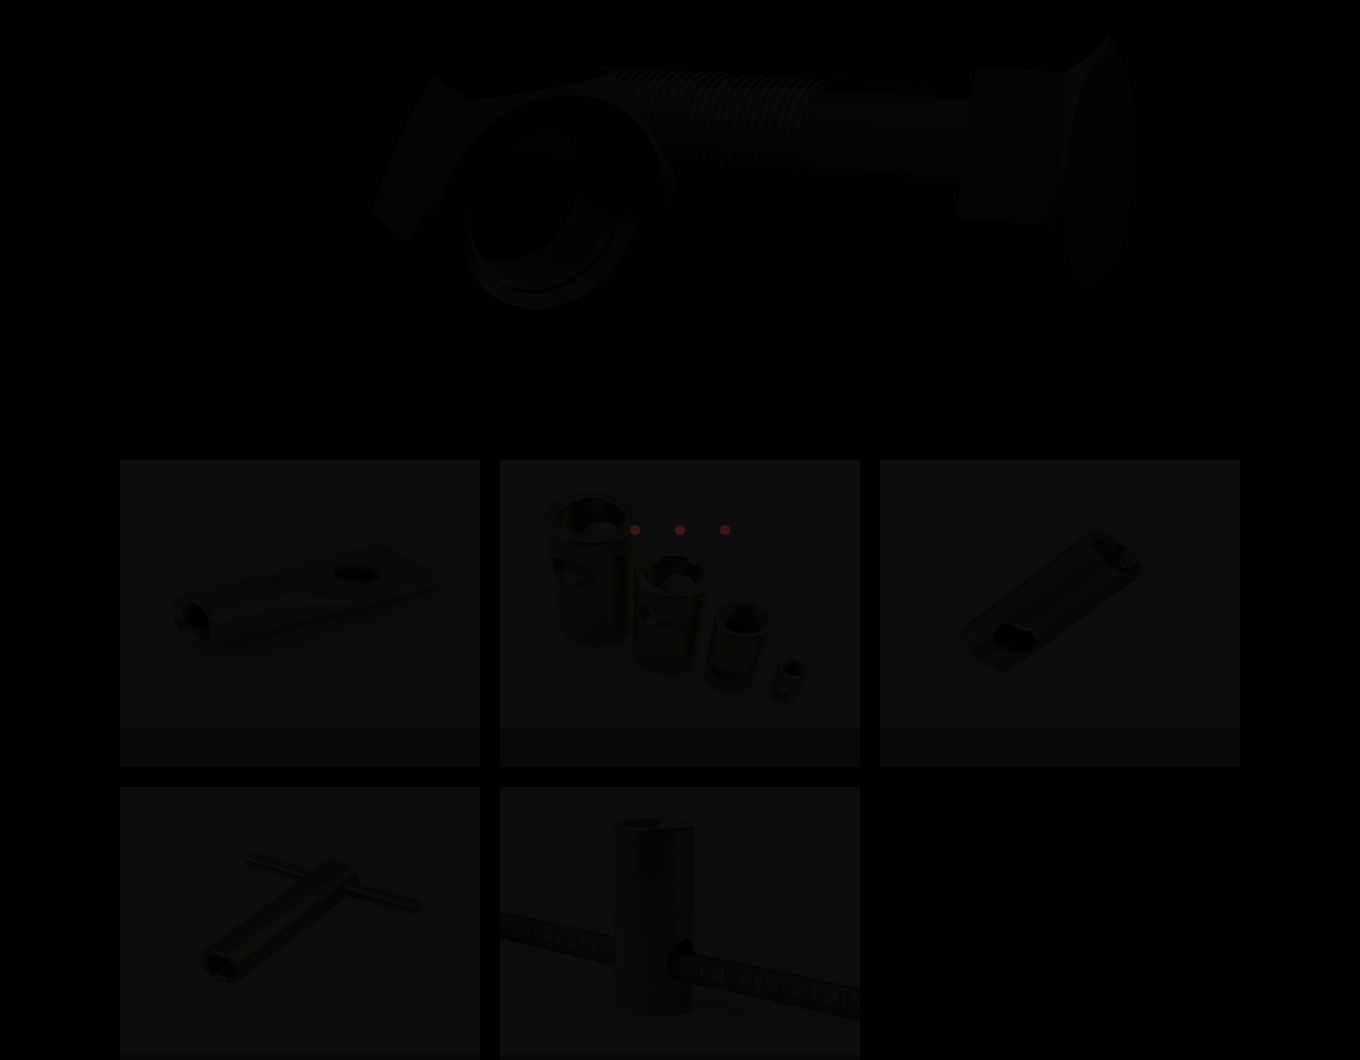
#include <cairo/cairo.h>
#include <math.h>
#include <stddef.h>

static cairo_t *cr;

static void use_color(int r, int g, int b) {
  cairo_set_source_rgb(cr, r / 255.0, g / 255.0, b / 255.0);
}

static void box(double x, double y, double w, double h, int r, int g, int b) {
  use_color(r, g, b);
  cairo_rectangle(cr, x, y, w, h);
  cairo_fill(cr);
}

static void picture(const char *path, double x, double y, double w, double h) {
  cairo_surface_t *image = cairo_image_surface_create_from_png(path);
  cairo_save(cr);
  cairo_set_source_surface(cr, image, x, y);
  cairo_rectangle(cr, x, y, w, h);
  cairo_fill(cr);
  cairo_restore(cr);
  cairo_surface_destroy(image);
}

static void draw(void) {
  use_color(1, 1, 1);
  cairo_paint(cr);
  picture("img_01.png", 90, 0, 1180, 400);
  picture("img_02.png", 120, 460, 360, 267);
  box(120, 727, 360, 40, 9, 9, 9);
  picture("img_03.png", 500, 460, 360, 267);
  box(500, 727, 360, 40, 9, 9, 9);
  picture("img_04.png", 880, 460, 360, 267);
  box(880, 727, 360, 40, 9, 9, 9);
  picture("img_05.png", 120, 787, 360, 267);
  box(120, 1054, 360, 6, 9, 9, 9);
  picture("img_06.png", 500, 787, 360, 267);
  box(500, 1054, 360, 6, 9, 9, 9);
  cairo_set_source_rgba(cr, 0.976, 0.243, 0.173, 0.2);
  cairo_arc(cr, 635, 530, 5, 0, 2 * M_PI);
  cairo_fill(cr);
  use_color(60, 23, 19);
  cairo_arc(cr, 680, 530, 5, 0, 2 * M_PI);
  cairo_fill(cr);
  cairo_arc(cr, 725, 530, 5, 0, 2 * M_PI);
  cairo_fill(cr);
}

int main(void) {
  cairo_surface_t *surface = cairo_image_surface_create(CAIRO_FORMAT_RGB24, 1360, 1060);
  cr = cairo_create(surface);
  cairo_font_options_t *options = cairo_font_options_create();
  cairo_font_options_set_hint_metrics(options, CAIRO_HINT_METRICS_OFF);
  cairo_font_options_set_hint_style(options, CAIRO_HINT_STYLE_NONE);
  cairo_set_font_options(cr, options);
  cairo_set_miter_limit(cr, 4);
  draw();
  cairo_surface_write_to_png(surface, "out.png");
  cairo_font_options_destroy(options);
  cairo_destroy(cr);
  cairo_surface_destroy(surface);
  return 0;
}
